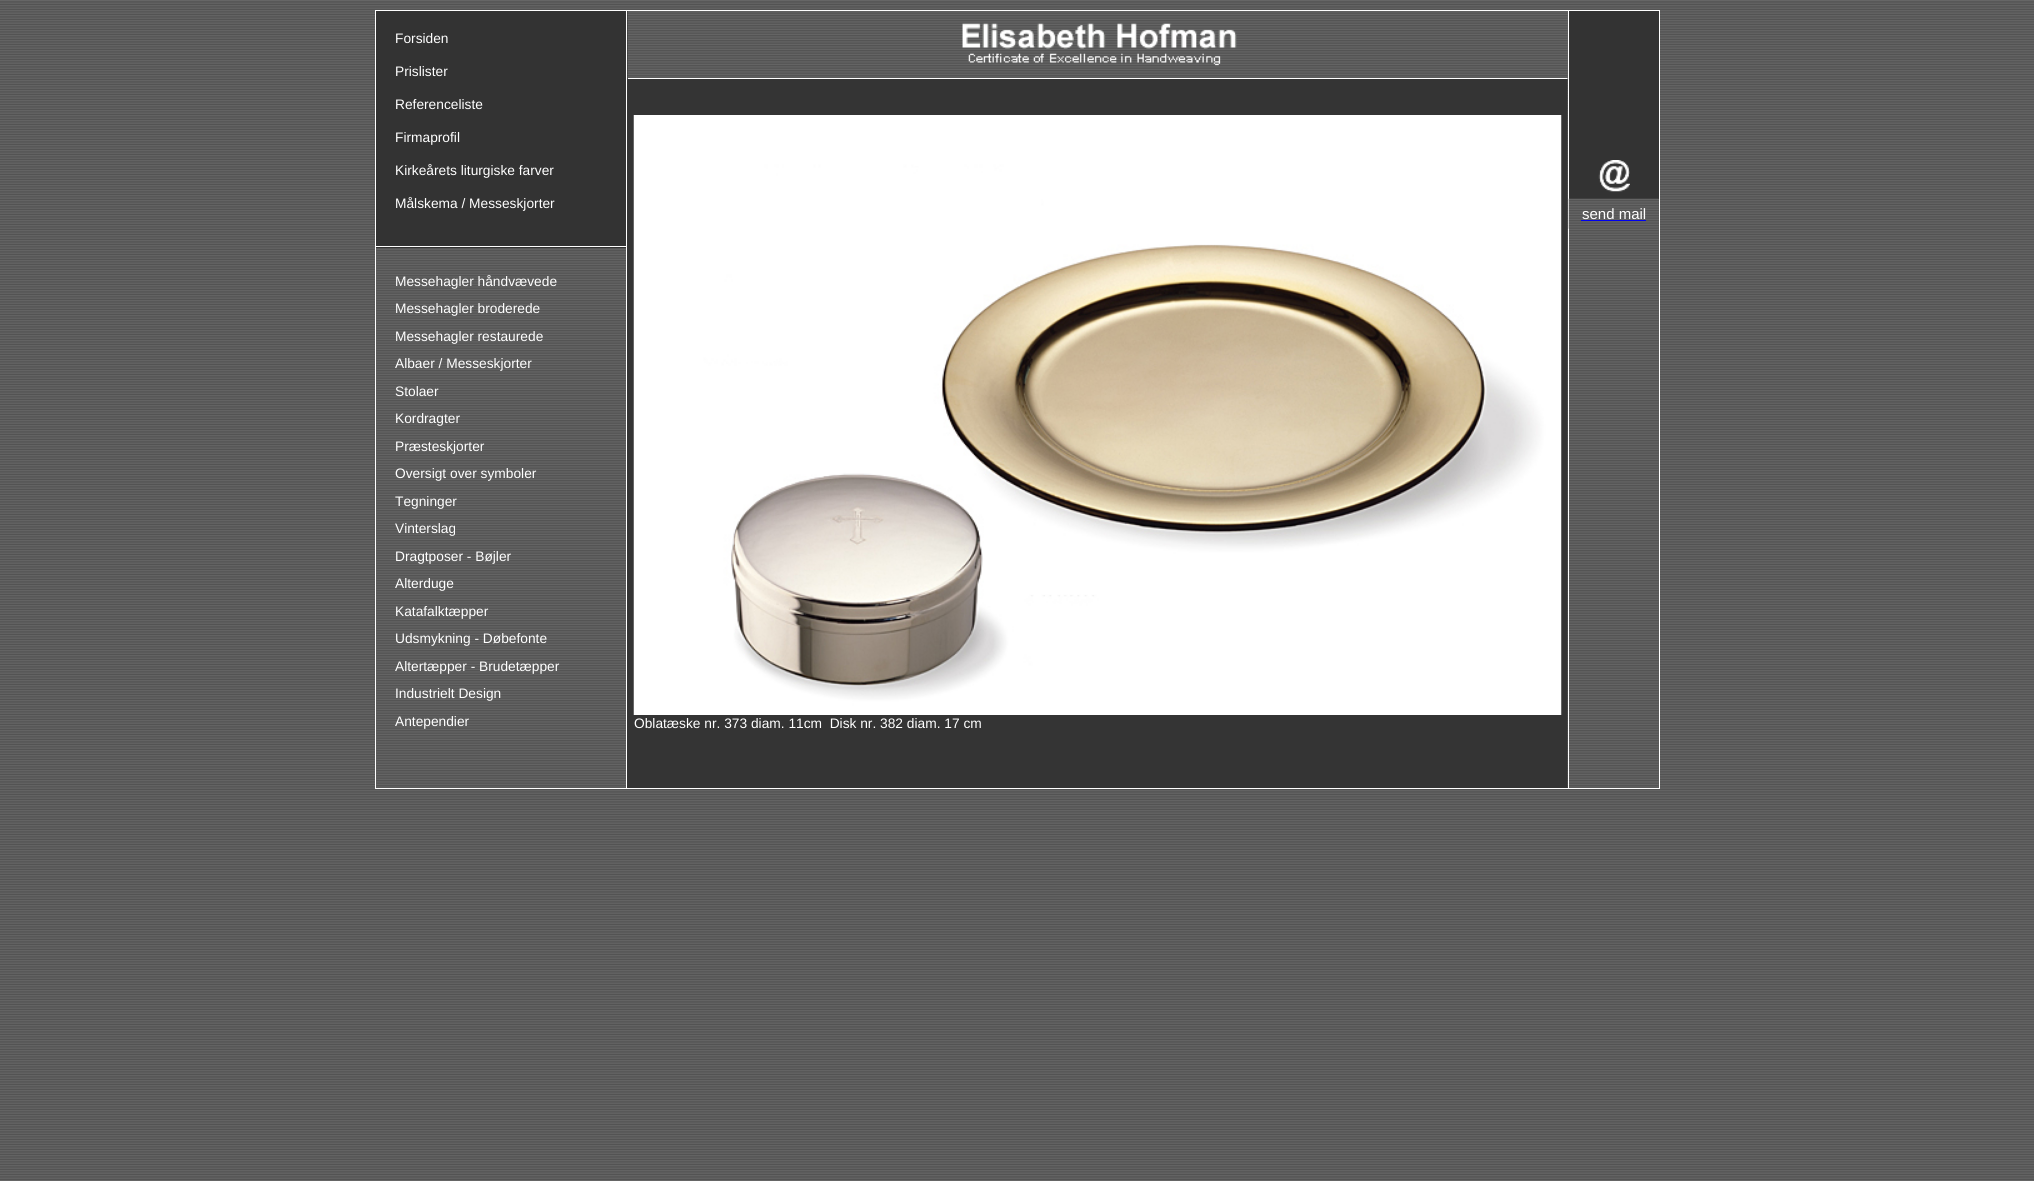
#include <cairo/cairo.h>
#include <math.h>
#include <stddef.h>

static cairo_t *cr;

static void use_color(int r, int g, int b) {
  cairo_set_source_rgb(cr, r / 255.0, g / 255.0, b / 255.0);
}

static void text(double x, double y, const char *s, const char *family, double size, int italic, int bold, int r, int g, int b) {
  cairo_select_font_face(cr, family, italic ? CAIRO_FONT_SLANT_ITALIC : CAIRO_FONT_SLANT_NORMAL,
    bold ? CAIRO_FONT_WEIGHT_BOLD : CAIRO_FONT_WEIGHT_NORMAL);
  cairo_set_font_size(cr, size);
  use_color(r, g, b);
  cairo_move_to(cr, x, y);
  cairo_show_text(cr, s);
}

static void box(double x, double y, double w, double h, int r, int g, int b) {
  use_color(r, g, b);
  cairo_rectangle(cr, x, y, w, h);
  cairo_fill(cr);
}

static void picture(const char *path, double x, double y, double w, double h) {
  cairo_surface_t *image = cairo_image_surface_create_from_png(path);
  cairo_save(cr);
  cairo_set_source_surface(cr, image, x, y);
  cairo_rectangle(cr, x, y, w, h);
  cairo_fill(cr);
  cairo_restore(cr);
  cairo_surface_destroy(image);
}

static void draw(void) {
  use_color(102, 102, 102);
  cairo_paint(cr);
  picture("img_01.png", 0, 1, 2034, 1179);
  cairo_rectangle(cr, 375.5, 10.5, 1284, 778);
  use_color(255, 255, 255);
  cairo_set_line_width(cr, 1);
  cairo_stroke(cr);
  picture("img_02.png", 376, 248, 250, 539);
  box(376, 11, 250, 237, 51, 51, 51);
  box(376, 246, 250, 1, 255, 255, 255);
  box(627, 11, 941, 777, 52, 52, 52);
  box(628, 11, 940, 67, 102, 102, 102);
  picture("img_06.png", 627, 11, 941, 68);
  box(628, 78, 940, 1, 255, 255, 255);
  picture("img_03.png", 1567, 11, 92, 777);
  box(1568, 11, 1, 777, 255, 255, 255);
  box(1569, 11, 90, 188, 51, 51, 51);
  picture("img_04.png", 1598, 160, 32, 32);
  picture("img_05.png", 1568, 198, 91, 31);
  box(1581, 220, 65, 1, 0, 0, 238);
  box(626, 11, 1, 777, 255, 255, 255);
  picture("img_07.png", 962, 23, 275, 43);
  picture("img_08.png", 633, 115, 929, 600);
  text(395, 43, "Forsiden", "Liberation Sans", 13.75, 0, 0, 255, 255, 255);
  text(395, 76, "Prislister", "Liberation Sans", 13.75, 0, 0, 255, 255, 255);
  text(395, 109, "Referenceliste", "Liberation Sans", 13.75, 0, 0, 255, 255, 255);
  text(395, 142, "Firmaprofil", "Liberation Sans", 13.75, 0, 0, 255, 255, 255);
  text(395, 175, "Kirkeårets liturgiske farver", "Liberation Sans", 13.75, 0, 0, 255, 255, 255);
  text(395, 208, "Målskema / Messeskjorter", "Liberation Sans", 13.75, 0, 0, 255, 255, 255);
  text(395, 286, "Messehagler håndvævede", "Liberation Sans", 13.75, 0, 0, 255, 255, 255);
  text(395, 313, "Messehagler broderede", "Liberation Sans", 13.75, 0, 0, 255, 255, 255);
  text(395, 341, "Messehagler restaurede", "Liberation Sans", 13.75, 0, 0, 255, 255, 255);
  text(395, 368, "Albaer / Messeskjorter", "Liberation Sans", 13.75, 0, 0, 255, 255, 255);
  text(395, 396, "Stolaer", "Liberation Sans", 13.75, 0, 0, 255, 255, 255);
  text(395, 423, "Kordragter", "Liberation Sans", 13.75, 0, 0, 255, 255, 255);
  text(395, 451, "Præsteskjorter", "Liberation Sans", 13.75, 0, 0, 255, 255, 255);
  text(395, 478, "Oversigt over symboler", "Liberation Sans", 13.75, 0, 0, 255, 255, 255);
  text(395, 506, "Tegninger", "Liberation Sans", 13.75, 0, 0, 255, 255, 255);
  text(395, 533, "Vinterslag", "Liberation Sans", 13.75, 0, 0, 255, 255, 255);
  text(395, 561, "Dragtposer - Bøjler", "Liberation Sans", 13.75, 0, 0, 255, 255, 255);
  text(395, 588, "Alterduge", "Liberation Sans", 13.75, 0, 0, 255, 255, 255);
  text(395, 616, "Katafalktæpper", "Liberation Sans", 13.75, 0, 0, 255, 255, 255);
  text(395, 643, "Udsmykning - Døbefonte", "Liberation Sans", 13.75, 0, 0, 255, 255, 255);
  text(395, 671, "Altertæpper - Brudetæpper", "Liberation Sans", 13.75, 0, 0, 255, 255, 255);
  text(395, 698, "Industrielt Design", "Liberation Sans", 13.75, 0, 0, 255, 255, 255);
  text(395, 726, "Antependier", "Liberation Sans", 13.75, 0, 0, 255, 255, 255);
  text(1582, 219, "send mail", "Liberation Sans", 15, 0, 0, 255, 255, 255);
  text(634, 728, "Oblatæske nr. 373 diam. 11cm  Disk nr. 382 diam. 17 cm", "Liberation Sans", 13.75, 0, 0, 255, 255, 255);
}

int main(void) {
  cairo_surface_t *surface = cairo_image_surface_create(CAIRO_FORMAT_RGB24, 2034, 1181);
  cr = cairo_create(surface);
  cairo_font_options_t *options = cairo_font_options_create();
  cairo_font_options_set_hint_metrics(options, CAIRO_HINT_METRICS_OFF);
  cairo_font_options_set_hint_style(options, CAIRO_HINT_STYLE_NONE);
  cairo_set_font_options(cr, options);
  cairo_set_miter_limit(cr, 4);
  draw();
  cairo_surface_write_to_png(surface, "out.png");
  cairo_font_options_destroy(options);
  cairo_destroy(cr);
  cairo_surface_destroy(surface);
  return 0;
}
